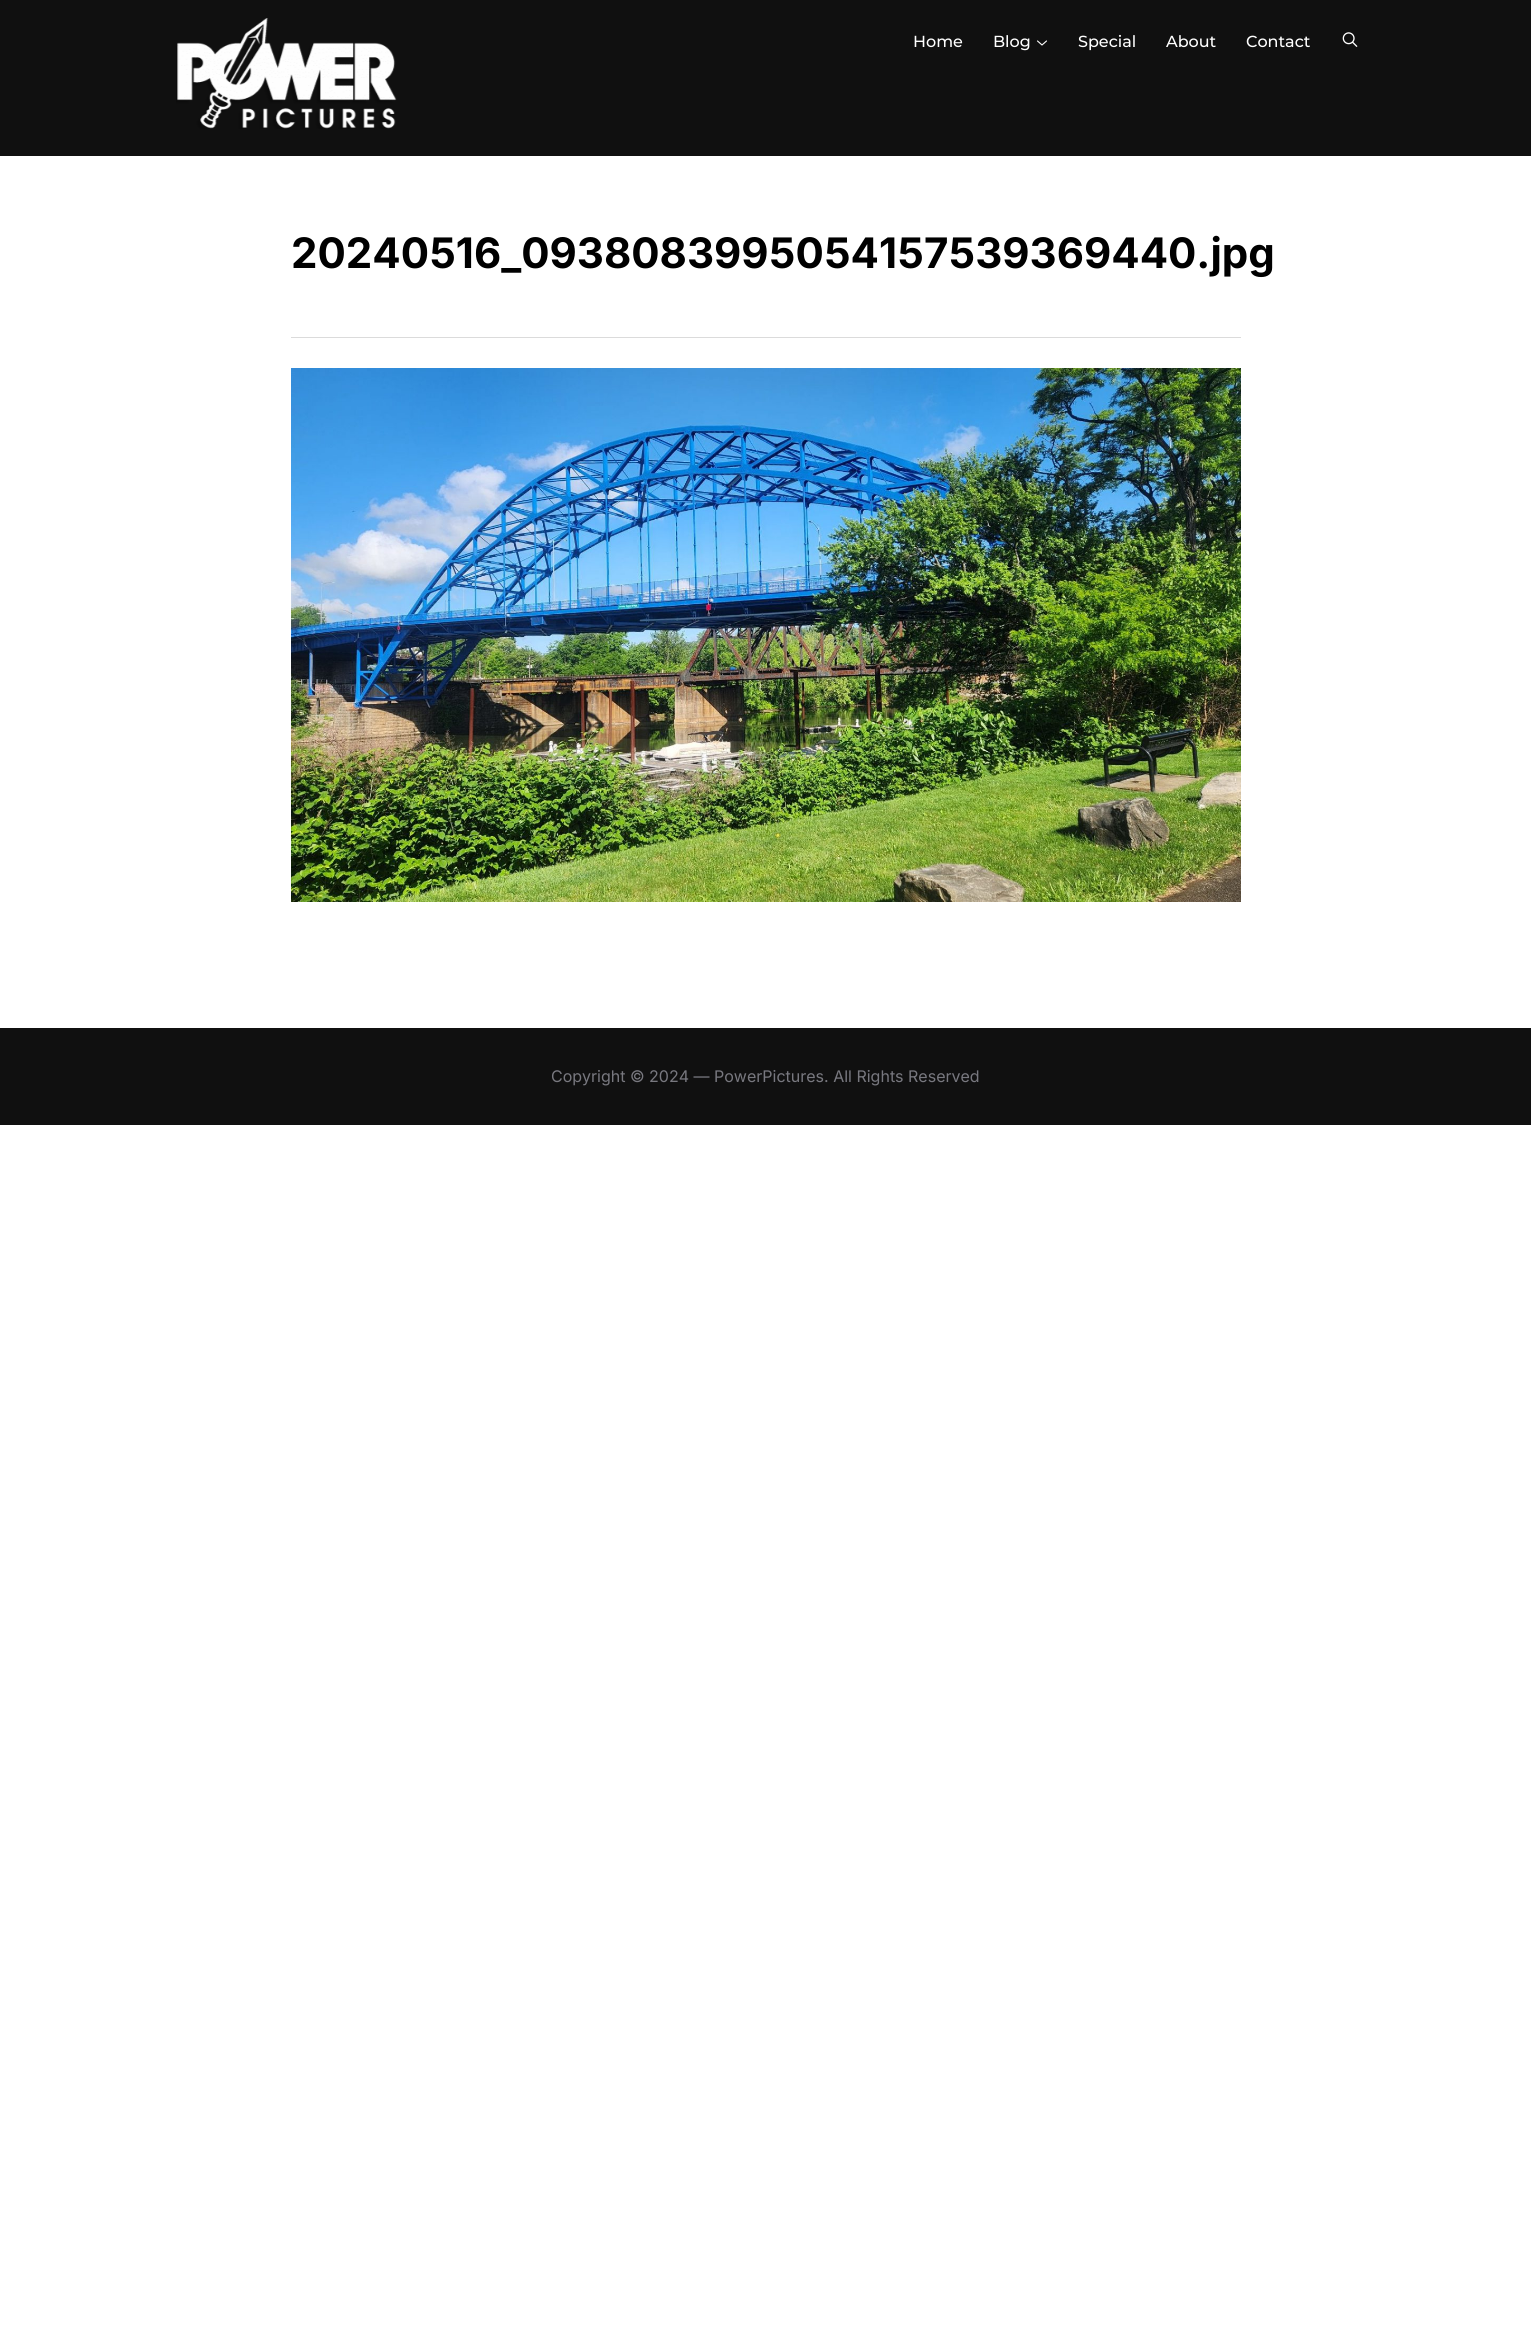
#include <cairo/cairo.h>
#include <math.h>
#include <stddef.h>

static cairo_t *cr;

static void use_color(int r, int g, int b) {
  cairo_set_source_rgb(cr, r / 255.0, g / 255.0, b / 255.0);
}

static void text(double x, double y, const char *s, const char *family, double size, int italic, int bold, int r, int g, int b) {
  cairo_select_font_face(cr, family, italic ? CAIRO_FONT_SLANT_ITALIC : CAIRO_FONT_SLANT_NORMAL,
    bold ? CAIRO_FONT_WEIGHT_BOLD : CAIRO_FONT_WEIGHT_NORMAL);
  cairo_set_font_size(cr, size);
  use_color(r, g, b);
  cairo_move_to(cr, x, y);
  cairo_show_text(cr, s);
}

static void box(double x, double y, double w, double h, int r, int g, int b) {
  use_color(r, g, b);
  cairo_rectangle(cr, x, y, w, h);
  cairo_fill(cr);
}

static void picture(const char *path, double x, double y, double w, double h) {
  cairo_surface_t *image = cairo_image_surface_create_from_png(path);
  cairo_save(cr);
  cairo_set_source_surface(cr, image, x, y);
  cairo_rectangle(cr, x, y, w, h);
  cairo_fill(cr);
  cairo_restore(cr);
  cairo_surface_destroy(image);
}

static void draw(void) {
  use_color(255, 255, 255);
  cairo_paint(cr);
  box(0, 0, 1531, 156, 16, 16, 16);
  picture("img_01.png", 176, 18, 221, 111);
  cairo_new_path(cr);
  cairo_move_to(cr, 1037.5, 41);
  cairo_line_to(cr, 1042, 45);
  cairo_line_to(cr, 1046.5, 41);
  use_color(255, 255, 255);
  cairo_set_line_width(cr, 1.1);
  cairo_set_line_cap(cr, CAIRO_LINE_CAP_ROUND);
  cairo_set_line_join(cr, CAIRO_LINE_JOIN_ROUND);
  cairo_stroke(cr);
  picture("img_02.png", 1342, 32, 16, 15);
  box(291, 337, 950, 1, 219, 219, 219);
  picture("img_03.png", 291, 368, 950, 534);
  box(0, 1028, 1531, 97, 16, 16, 16);
  text(913, 47, "Home", "Montserrat Medium", 16, 0, 0, 255, 255, 255);
  text(993, 47, "Blog", "Montserrat Medium", 16, 0, 0, 255, 255, 255);
  text(1078, 47, "Special", "Montserrat Medium", 16, 0, 0, 255, 255, 255);
  text(1166, 47, "About", "Montserrat Medium", 16, 0, 0, 255, 255, 255);
  text(1246, 47, "Contact", "Montserrat Medium", 16, 0, 0, 255, 255, 255);
  text(291, 268, "20240516_0938083995054157539369440.jpg", "Inter", 42, 0, 1, 0, 0, 0);
  text(551, 1082, "Copyright © 2024 — PowerPictures. All Rights Reserved", "Inter", 16, 0, 0, 120, 120, 127);
}

int main(void) {
  cairo_surface_t *surface = cairo_image_surface_create(CAIRO_FORMAT_RGB24, 1531, 2341);
  cr = cairo_create(surface);
  cairo_font_options_t *options = cairo_font_options_create();
  cairo_font_options_set_hint_metrics(options, CAIRO_HINT_METRICS_OFF);
  cairo_font_options_set_hint_style(options, CAIRO_HINT_STYLE_NONE);
  cairo_set_font_options(cr, options);
  cairo_set_miter_limit(cr, 4);
  draw();
  cairo_surface_write_to_png(surface, "out.png");
  cairo_font_options_destroy(options);
  cairo_destroy(cr);
  cairo_surface_destroy(surface);
  return 0;
}
